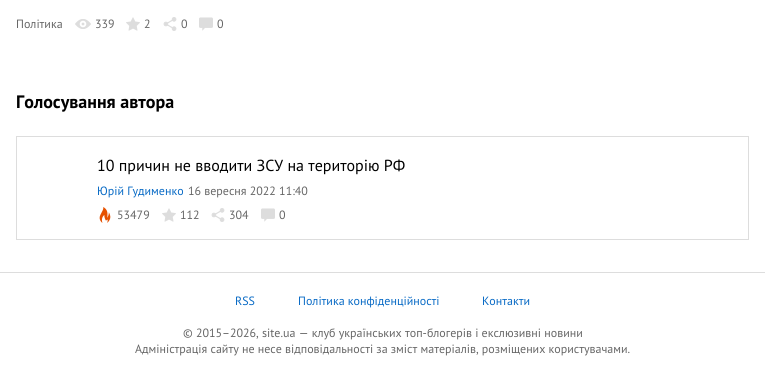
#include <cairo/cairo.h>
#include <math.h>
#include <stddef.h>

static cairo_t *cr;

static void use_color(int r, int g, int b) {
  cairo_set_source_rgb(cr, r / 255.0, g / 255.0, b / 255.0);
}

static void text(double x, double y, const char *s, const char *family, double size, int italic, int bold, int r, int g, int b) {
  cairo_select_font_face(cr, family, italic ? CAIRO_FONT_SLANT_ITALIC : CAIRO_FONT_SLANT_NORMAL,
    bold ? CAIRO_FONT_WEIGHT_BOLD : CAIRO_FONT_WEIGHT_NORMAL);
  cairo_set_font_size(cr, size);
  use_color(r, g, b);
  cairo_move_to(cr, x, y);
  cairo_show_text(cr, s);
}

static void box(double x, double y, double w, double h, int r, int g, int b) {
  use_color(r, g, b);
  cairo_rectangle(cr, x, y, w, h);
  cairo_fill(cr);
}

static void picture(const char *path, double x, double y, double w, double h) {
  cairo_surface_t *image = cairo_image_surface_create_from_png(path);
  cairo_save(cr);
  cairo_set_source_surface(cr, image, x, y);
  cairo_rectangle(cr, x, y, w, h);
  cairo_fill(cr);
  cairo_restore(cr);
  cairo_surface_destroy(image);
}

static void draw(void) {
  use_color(255, 255, 255);
  cairo_paint(cr);
  picture("img_01.png", 75, 19, 16, 10);
  picture("img_02.png", 126, 17, 14, 14);
  picture("img_03.png", 163, 17, 14, 14);
  picture("img_04.png", 199, 17, 14, 14);
  cairo_rectangle(cr, 16.5, 136.5, 732, 103);
  use_color(221, 221, 221);
  cairo_set_line_width(cr, 1);
  cairo_stroke(cr);
  picture("img_05.png", 99, 207, 12, 16);
  picture("img_02.png", 162, 208, 14, 14);
  picture("img_03.png", 211, 208, 14, 14);
  picture("img_04.png", 261, 208, 14, 14);
  box(0, 272, 765, 1, 221, 221, 221);
  text(16, 28, "Політика", "PT Sans", 12, 0, 0, 102, 102, 102);
  text(95, 28, "339", "PT Sans", 12, 0, 0, 102, 102, 102);
  text(144, 28, "2", "PT Sans", 12, 0, 0, 102, 102, 102);
  text(181, 28, "0", "PT Sans", 12, 0, 0, 102, 102, 102);
  text(217, 28, "0", "PT Sans", 12, 0, 0, 102, 102, 102);
  text(16, 108, "Голосування автора", "PT Sans", 18, 0, 1, 0, 0, 0);
  text(97, 171, "10 причин не вводити ЗСУ на територію РФ", "PT Sans", 16, 0, 0, 0, 0, 0);
  text(97, 195, "Юрій Гудименко", "PT Sans", 12, 0, 0, 8, 106, 197);
  text(188, 195, "16 вересня 2022 11:40", "PT Sans", 12, 0, 0, 102, 102, 102);
  text(117, 219, "53479", "PT Sans", 12, 0, 0, 102, 102, 102);
  text(180, 219, "112", "PT Sans", 12, 0, 0, 102, 102, 102);
  text(229, 219, "304", "PT Sans", 12, 0, 0, 102, 102, 102);
  text(279, 219, "0", "PT Sans", 12, 0, 0, 102, 102, 102);
  text(235, 305, "RSS", "PT Sans", 12, 0, 0, 8, 106, 197);
  text(298, 305, "Політика конфіденційності", "PT Sans", 12, 0, 0, 8, 106, 197);
  text(482, 305, "Контакти", "PT Sans", 12, 0, 0, 8, 106, 197);
  text(183, 337, "© 2015–2026, site.ua — клуб українських топ-блогерів i екслюзивнi новини", "PT Sans", 12, 0, 0, 102, 102, 102);
  text(135, 353, "Адміністрація сайту не несе відповідальності за зміст матеріалів, розміщених користувачами.", "PT Sans", 12, 0, 0, 102, 102, 102);
}

int main(void) {
  cairo_surface_t *surface = cairo_image_surface_create(CAIRO_FORMAT_RGB24, 765, 377);
  cr = cairo_create(surface);
  cairo_font_options_t *options = cairo_font_options_create();
  cairo_font_options_set_hint_metrics(options, CAIRO_HINT_METRICS_OFF);
  cairo_font_options_set_hint_style(options, CAIRO_HINT_STYLE_NONE);
  cairo_set_font_options(cr, options);
  cairo_set_miter_limit(cr, 4);
  draw();
  cairo_surface_write_to_png(surface, "out.png");
  cairo_font_options_destroy(options);
  cairo_destroy(cr);
  cairo_surface_destroy(surface);
  return 0;
}
